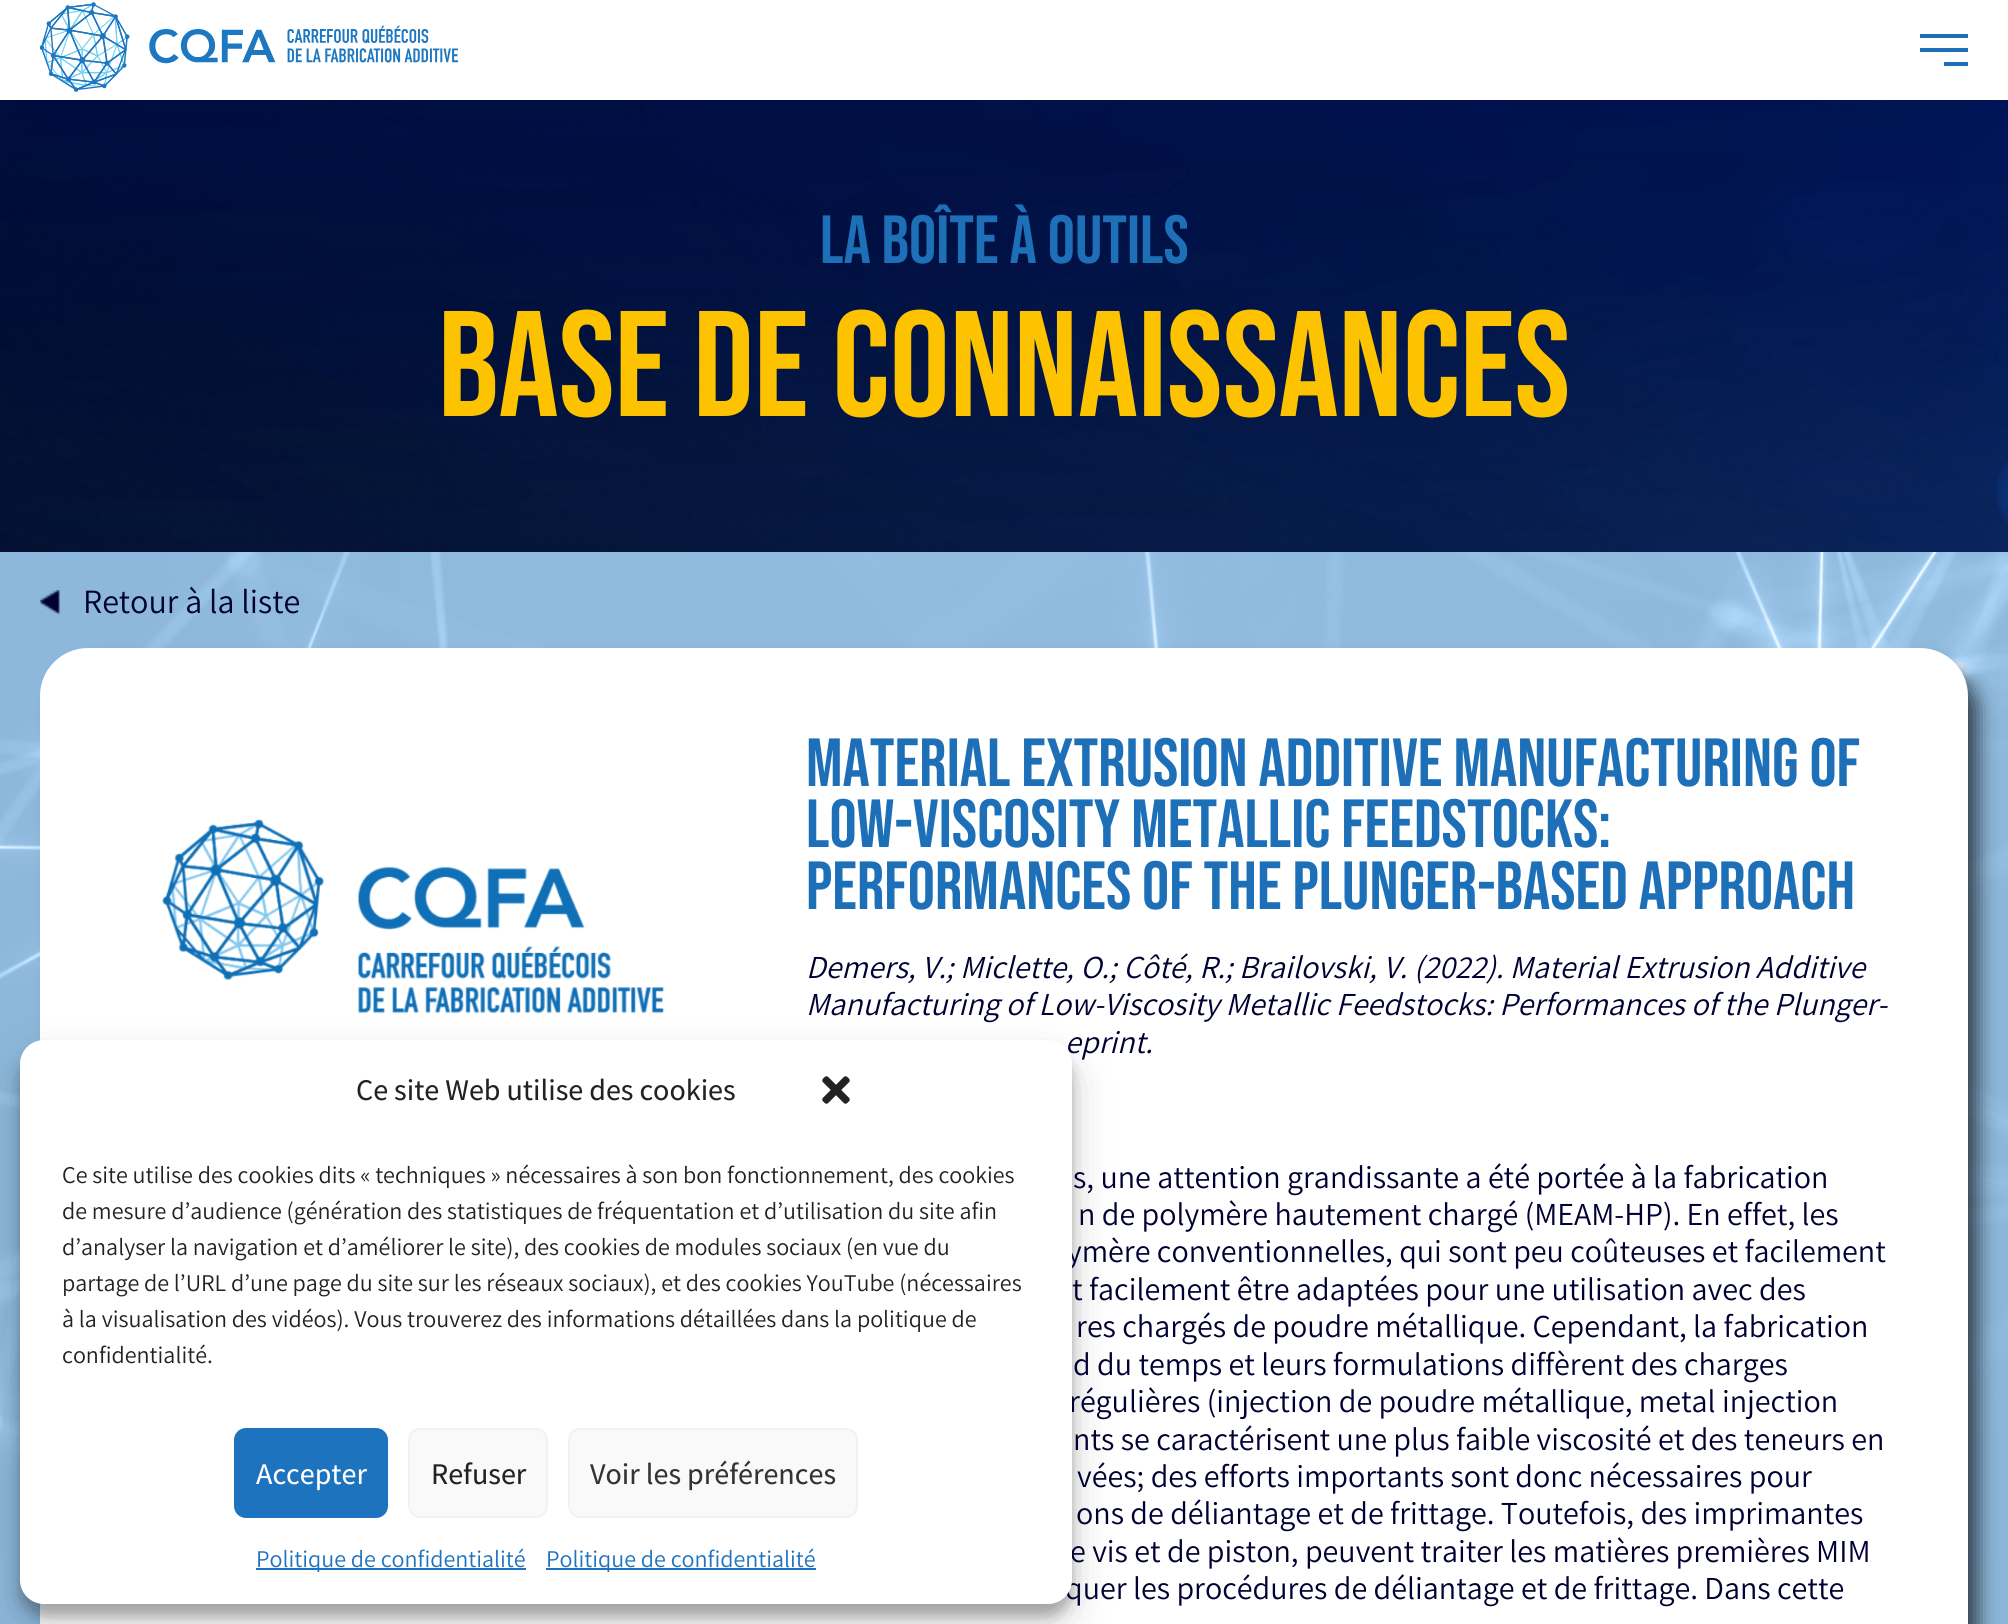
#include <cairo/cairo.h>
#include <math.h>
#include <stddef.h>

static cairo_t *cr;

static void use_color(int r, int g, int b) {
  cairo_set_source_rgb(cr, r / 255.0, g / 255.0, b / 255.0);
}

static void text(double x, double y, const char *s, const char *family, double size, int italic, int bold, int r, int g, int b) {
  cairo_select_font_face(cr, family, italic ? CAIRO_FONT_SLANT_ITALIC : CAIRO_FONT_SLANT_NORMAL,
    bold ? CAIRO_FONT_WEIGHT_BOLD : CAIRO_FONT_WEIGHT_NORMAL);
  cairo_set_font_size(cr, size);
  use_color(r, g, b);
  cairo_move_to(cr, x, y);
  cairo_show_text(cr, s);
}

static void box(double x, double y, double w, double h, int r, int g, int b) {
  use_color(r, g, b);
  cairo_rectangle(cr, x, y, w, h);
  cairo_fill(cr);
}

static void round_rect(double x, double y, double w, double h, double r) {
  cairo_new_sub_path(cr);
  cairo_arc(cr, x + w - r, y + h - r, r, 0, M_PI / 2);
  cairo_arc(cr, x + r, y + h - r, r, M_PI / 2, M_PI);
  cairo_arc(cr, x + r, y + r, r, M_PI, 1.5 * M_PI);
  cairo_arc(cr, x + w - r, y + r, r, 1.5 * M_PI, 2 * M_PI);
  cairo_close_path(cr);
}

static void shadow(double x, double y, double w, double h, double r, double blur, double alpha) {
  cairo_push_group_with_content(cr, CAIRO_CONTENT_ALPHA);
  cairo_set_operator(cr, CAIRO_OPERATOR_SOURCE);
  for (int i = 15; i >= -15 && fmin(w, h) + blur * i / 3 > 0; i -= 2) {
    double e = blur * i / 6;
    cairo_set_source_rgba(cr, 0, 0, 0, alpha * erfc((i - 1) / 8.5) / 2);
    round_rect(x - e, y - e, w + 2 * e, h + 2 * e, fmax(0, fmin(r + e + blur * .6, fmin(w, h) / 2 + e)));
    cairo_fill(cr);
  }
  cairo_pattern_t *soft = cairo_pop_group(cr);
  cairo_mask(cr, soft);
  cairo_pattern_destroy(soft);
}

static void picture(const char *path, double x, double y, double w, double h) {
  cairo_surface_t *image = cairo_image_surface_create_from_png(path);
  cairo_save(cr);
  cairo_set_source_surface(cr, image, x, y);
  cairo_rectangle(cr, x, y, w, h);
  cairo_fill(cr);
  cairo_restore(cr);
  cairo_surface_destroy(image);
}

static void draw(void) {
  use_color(255, 255, 255);
  cairo_paint(cr);
  picture("img_01.png", 40, 2, 418, 90);
  box(1920, 34, 48, 4, 29, 112, 183);
  box(1920, 48, 48, 4, 29, 112, 183);
  box(1944, 62, 24, 4, 29, 112, 183);
  picture("img_02.png", 0, 100, 2008, 452);
  box(0, 1558, 2008, 66, 140, 182, 217);
  picture("img_03.png", 0, 552, 2008, 1006);
  picture("img_04.png", 40, 590, 20, 24);
  use_color(0, 0, 0);
  shadow(58, 666, 1920, 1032, 44, 10, 0.66);
  use_color(255, 255, 255);
  round_rect(40, 648, 1928, 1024, 48);
  cairo_fill(cr);
  picture("img_05.png", 162, 819, 502, 195);
  use_color(0, 0, 0);
  shadow(20, 1052, 1052, 564, 24, 6, 0.23);
  shadow(20, 1060, 1052, 564, 24, 20, 0.19);
  text(820, 263, "LA BOÎTE À OUTILS", "Bebas Neue", 68, 0, 0, 29, 112, 183);
  text(438, 416, "BASE DE CONNAISSANCES", "Bebas Neue", 150, 0, 0, 253, 195, 0);
  text(83, 613, "Retour à la liste", "Assistant", 34, 0, 0, 0, 0, 51);
  text(806, 786, "MATERIAL EXTRUSION ADDITIVE MANUFACTURING OF", "Bebas Neue", 68, 0, 0, 29, 112, 183);
  text(806, 847, "LOW-VISCOSITY METALLIC FEEDSTOCKS:", "Bebas Neue", 68, 0, 0, 29, 112, 183);
  text(806, 909, "PERFORMANCES OF THE PLUNGER-BASED APPROACH", "Bebas Neue", 68, 0, 0, 29, 112, 183);
  text(806, 978, "Demers, V.; Miclette, O.; Côté, R.; Brailovski, V. (2022). Material Extrusion Additive", "Assistant", 32, 1, 0, 0, 0, 51);
  text(806, 1015, "Manufacturing of Low-Viscosity Metallic Feedstocks: Performances of the Plunger-", "Assistant", 32, 1, 0, 0, 0, 51);
  text(1065, 1053, "eprint.", "Assistant", 32, 1, 0, 0, 0, 51);
  text(1073, 1188, "s, une attention grandissante a été portée à la fabrication", "Assistant", 32, 0, 0, 0, 0, 51);
  text(1078, 1225, "n de polymère hautement chargé (MEAM-HP). En effet, les", "Assistant", 32, 0, 0, 0, 0, 51);
  text(1067, 1262, "ymère conventionnelles, qui sont peu coûteuses et facilement", "Assistant", 32, 0, 0, 0, 0, 51);
  text(1072, 1300, "t facilement être adaptées pour une utilisation avec des", "Assistant", 32, 0, 0, 0, 0, 51);
  text(1076, 1337, "res chargés de poudre métallique. Cependant, la fabrication", "Assistant", 32, 0, 0, 0, 0, 51);
  text(1073, 1375, "d du temps et leurs formulations diffèrent des charges", "Assistant", 32, 0, 0, 0, 0, 51);
  text(1069, 1412, "régulières (injection de poudre métallique, metal injection", "Assistant", 32, 0, 0, 0, 0, 51);
  text(1073, 1450, "nts se caractérisent une plus faible viscosité et des teneurs en", "Assistant", 32, 0, 0, 0, 0, 51);
  text(1077, 1487, "vées; des efforts importants sont donc nécessaires pour", "Assistant", 32, 0, 0, 0, 0, 51);
  text(1076, 1524, "ons de déliantage et de frittage. Toutefois, des imprimantes", "Assistant", 32, 0, 0, 0, 0, 51);
  text(1070, 1562, "e vis et de piston, peuvent traiter les matières premières MIM", "Assistant", 32, 0, 0, 0, 0, 51);
  text(1065, 1599, "quer les procédures de déliantage et de frittage. Dans cette", "Assistant", 32, 0, 0, 0, 0, 51);
  use_color(255, 255, 255);
  round_rect(20, 1040, 1052, 564, 24);
  cairo_fill(cr);
  text(356, 1100, "Ce site Web utilise des cookies", "Assistant Medium", 30, 0, 0, 34, 34, 34);
  picture("img_06.png", 822, 1076, 28, 28);
  text(62, 1183, "Ce site utilise des cookies dits « techniques » nécessaires à son bon fonctionnement, des cookies", "Assistant", 24, 0, 0, 34, 34, 34);
  text(62, 1219, "de mesure d’audience (génération des statistiques de fréquentation et d’utilisation du site afin", "Assistant", 24, 0, 0, 34, 34, 34);
  text(62, 1255, "d’analyser la navigation et d’améliorer le site), des cookies de modules sociaux (en vue du", "Assistant", 24, 0, 0, 34, 34, 34);
  text(62, 1291, "partage de l’URL d’une page du site sur les réseaux sociaux), et des cookies YouTube (nécessaires", "Assistant", 24, 0, 0, 34, 34, 34);
  text(62, 1327, "à la visualisation des vidéos). Vous trouverez des informations détaillées dans la politique de", "Assistant", 24, 0, 0, 34, 34, 34);
  text(62, 1363, "confidentialité.", "Assistant", 24, 0, 0, 34, 34, 34);
  use_color(30, 115, 190);
  round_rect(235, 1429, 152, 88, 11);
  cairo_fill_preserve(cr);
  cairo_stroke(cr);
  text(256, 1484, "Accepter", "Assistant Medium", 30, 0, 0, 255, 255, 255);
  use_color(249, 249, 249);
  round_rect(409, 1429, 138, 88, 11);
  cairo_fill_preserve(cr);
  use_color(242, 242, 242);
  cairo_stroke(cr);
  text(431, 1484, "Refuser", "Assistant Medium", 30, 0, 0, 34, 34, 34);
  use_color(249, 249, 249);
  round_rect(569, 1429, 288, 88, 11);
  cairo_fill_preserve(cr);
  use_color(242, 242, 242);
  cairo_stroke(cr);
  text(590, 1484, "Voir les préférences", "Assistant Medium", 30, 0, 0, 51, 51, 51);
  box(256, 1568, 270, 2, 30, 115, 190);
  text(256, 1567, "Politique de confidentialité", "Assistant", 24, 0, 0, 30, 115, 190);
  box(546, 1568, 270, 2, 30, 115, 190);
  text(546, 1567, "Politique de confidentialité", "Assistant", 24, 0, 0, 30, 115, 190);
}

int main(void) {
  cairo_surface_t *surface = cairo_image_surface_create(CAIRO_FORMAT_RGB24, 2008, 1624);
  cr = cairo_create(surface);
  cairo_font_options_t *options = cairo_font_options_create();
  cairo_font_options_set_hint_metrics(options, CAIRO_HINT_METRICS_OFF);
  cairo_font_options_set_hint_style(options, CAIRO_HINT_STYLE_NONE);
  cairo_set_font_options(cr, options);
  cairo_set_miter_limit(cr, 4);
  draw();
  cairo_surface_write_to_png(surface, "out.png");
  cairo_font_options_destroy(options);
  cairo_destroy(cr);
  cairo_surface_destroy(surface);
  return 0;
}
